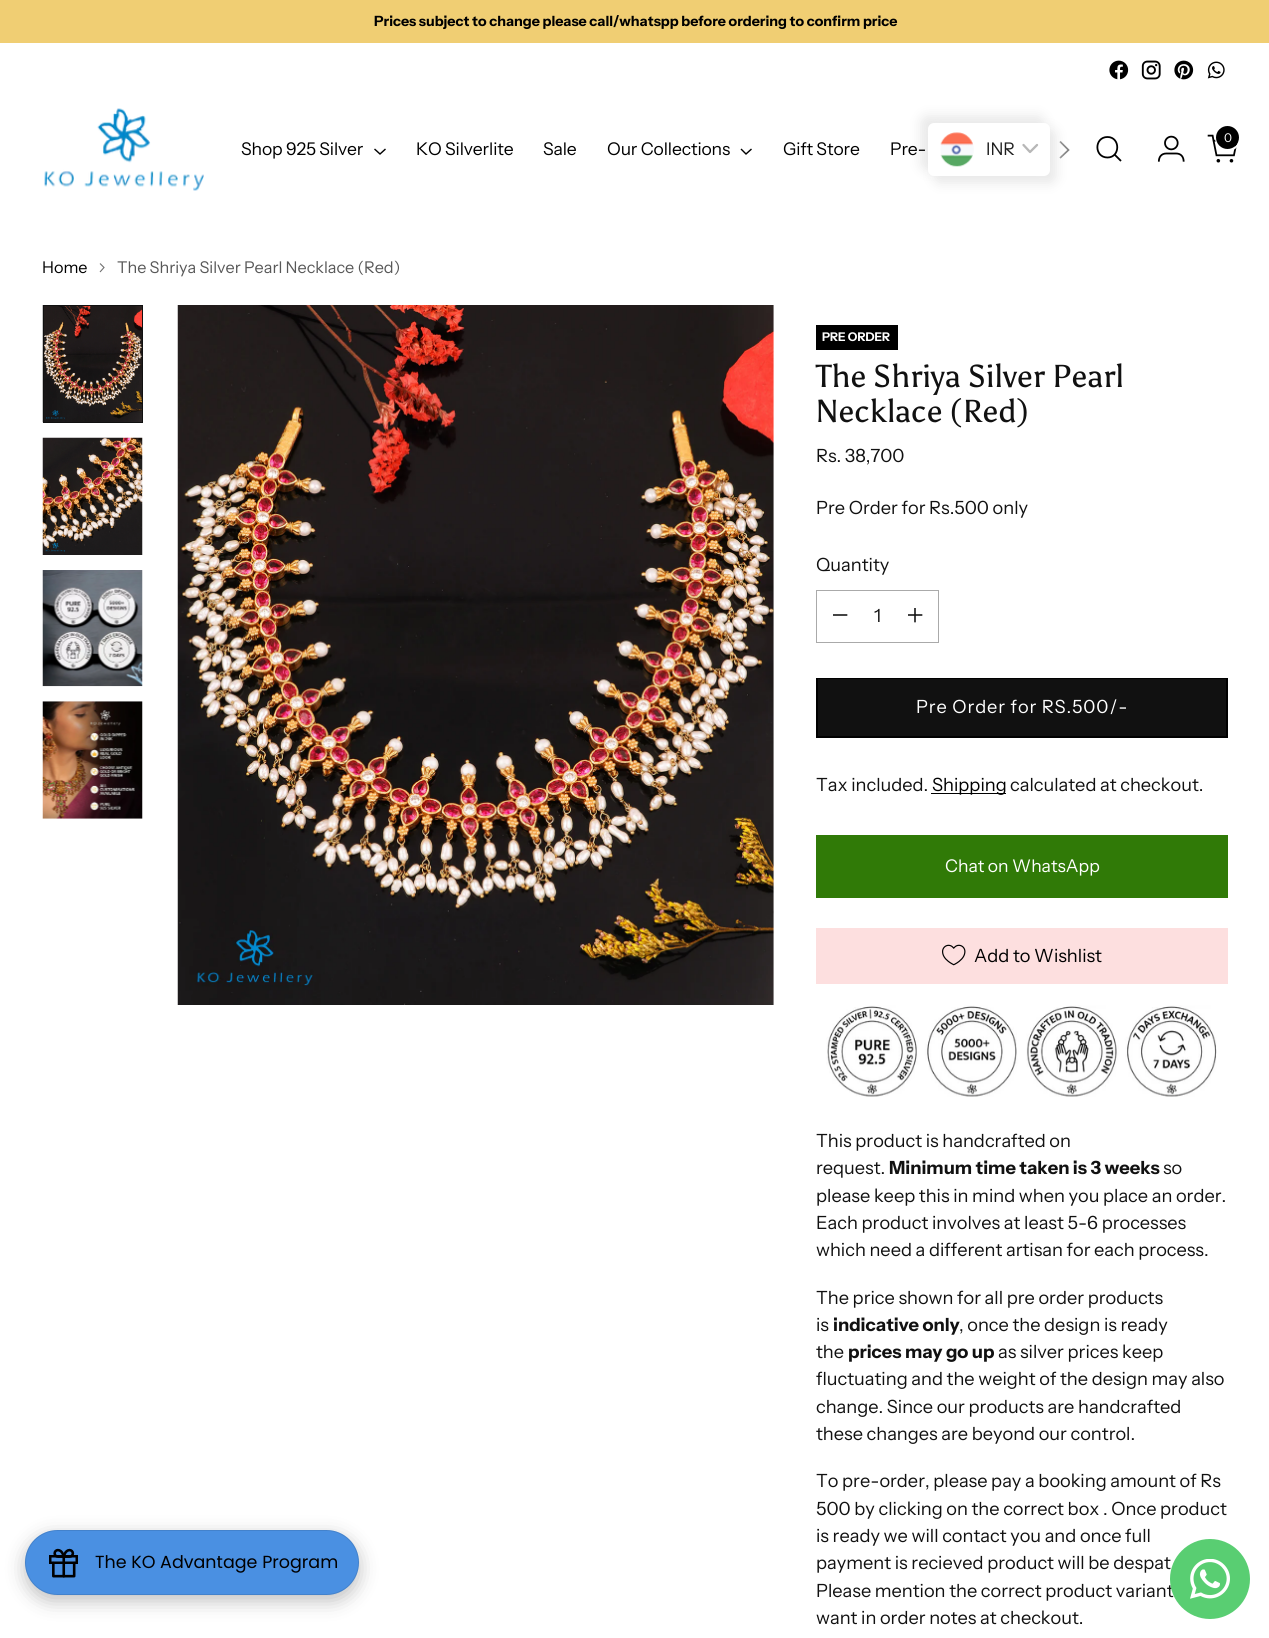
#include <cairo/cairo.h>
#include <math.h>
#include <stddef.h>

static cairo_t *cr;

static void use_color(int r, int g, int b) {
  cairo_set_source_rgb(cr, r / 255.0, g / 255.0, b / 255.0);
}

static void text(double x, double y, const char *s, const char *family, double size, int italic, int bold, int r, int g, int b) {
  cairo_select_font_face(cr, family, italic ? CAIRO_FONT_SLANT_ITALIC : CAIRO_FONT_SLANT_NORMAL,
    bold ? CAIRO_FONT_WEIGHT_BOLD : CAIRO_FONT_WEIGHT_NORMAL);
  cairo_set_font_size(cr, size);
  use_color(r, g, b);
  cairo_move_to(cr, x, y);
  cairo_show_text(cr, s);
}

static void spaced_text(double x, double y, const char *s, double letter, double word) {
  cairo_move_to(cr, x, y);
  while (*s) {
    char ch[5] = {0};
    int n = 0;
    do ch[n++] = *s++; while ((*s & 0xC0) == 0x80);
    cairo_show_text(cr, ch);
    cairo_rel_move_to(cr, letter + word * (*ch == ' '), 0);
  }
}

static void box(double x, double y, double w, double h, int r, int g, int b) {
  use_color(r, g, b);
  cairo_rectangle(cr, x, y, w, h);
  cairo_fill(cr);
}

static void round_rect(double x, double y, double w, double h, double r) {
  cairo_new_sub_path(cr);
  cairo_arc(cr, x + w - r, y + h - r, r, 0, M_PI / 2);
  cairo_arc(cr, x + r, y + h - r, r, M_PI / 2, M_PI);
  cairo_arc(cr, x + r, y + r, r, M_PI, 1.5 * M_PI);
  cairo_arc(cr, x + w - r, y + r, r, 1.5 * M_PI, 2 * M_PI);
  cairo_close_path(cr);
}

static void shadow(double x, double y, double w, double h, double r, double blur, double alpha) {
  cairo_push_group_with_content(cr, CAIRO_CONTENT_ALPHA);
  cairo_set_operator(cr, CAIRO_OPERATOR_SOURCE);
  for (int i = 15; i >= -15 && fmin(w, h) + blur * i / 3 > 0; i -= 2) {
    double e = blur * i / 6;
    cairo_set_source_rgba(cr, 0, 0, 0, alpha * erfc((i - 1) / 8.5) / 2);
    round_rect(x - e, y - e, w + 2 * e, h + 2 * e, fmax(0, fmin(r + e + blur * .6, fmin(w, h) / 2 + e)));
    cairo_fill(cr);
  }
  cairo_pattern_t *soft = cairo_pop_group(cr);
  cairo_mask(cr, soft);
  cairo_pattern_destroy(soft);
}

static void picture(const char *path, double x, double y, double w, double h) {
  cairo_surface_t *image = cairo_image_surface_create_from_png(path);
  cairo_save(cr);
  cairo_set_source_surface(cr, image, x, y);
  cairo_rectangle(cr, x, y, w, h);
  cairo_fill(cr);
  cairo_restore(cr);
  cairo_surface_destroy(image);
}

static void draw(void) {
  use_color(255, 255, 255);
  cairo_paint(cr);
  box(0, 0, 1269, 43, 240, 206, 115);
  picture("img_01.png", 1109, 60, 20, 20);
  picture("img_02.png", 1141, 60, 20, 20);
  picture("img_03.png", 1174, 60, 20, 20);
  picture("img_04.png", 1207, 61, 18, 18);
  picture("img_05.png", 44, 108, 160, 83);
  cairo_new_path(cr);
  cairo_move_to(cr, 374.5, 149);
  cairo_line_to(cr, 380, 154);
  cairo_line_to(cr, 385.5, 149);
  use_color(0, 0, 0);
  cairo_set_line_width(cr, 1.4);
  cairo_stroke(cr);
  cairo_new_path(cr);
  cairo_move_to(cr, 741, 149);
  cairo_line_to(cr, 746, 154);
  cairo_line_to(cr, 751.5, 149);
  cairo_stroke(cr);
  cairo_new_path(cr);
  cairo_move_to(cr, 1060, 158);
  cairo_line_to(cr, 1068.5, 150);
  cairo_line_to(cr, 1060, 141.5);
  use_color(128, 128, 128);
  cairo_set_line_width(cr, 1.7);
  cairo_stroke(cr);
  use_color(232, 232, 232);
  shadow(921, 116, 123, 54, 6, 6, 1);
  shadow(934, 129, 122, 54, 6, 6, 1);
  use_color(255, 255, 255);
  round_rect(928, 123, 122, 53, 6);
  cairo_fill(cr);
  picture("img_06.png", 940, 132, 34, 35);
  cairo_new_path(cr);
  cairo_move_to(cr, 1023.5, 145);
  cairo_line_to(cr, 1030, 152);
  cairo_line_to(cr, 1037, 145);
  use_color(183, 183, 183);
  cairo_set_line_width(cr, 2.3);
  cairo_set_line_cap(cr, CAIRO_LINE_CAP_ROUND);
  cairo_set_line_join(cr, CAIRO_LINE_JOIN_ROUND);
  cairo_stroke(cr);
  cairo_new_path(cr);
  cairo_move_to(cr, 1107.5, 157.5);
  cairo_curve_to(cr, 1120.5, 157.5, 1120.5, 137, 1107.5, 137);
  cairo_curve_to(cr, 1094, 137, 1094, 157.5, 1107.5, 157.5);
  cairo_close_path(cr);
  use_color(0, 0, 0);
  cairo_set_line_width(cr, 1.8);
  cairo_set_line_join(cr, CAIRO_LINE_JOIN_MITER);
  cairo_stroke(cr);
  cairo_new_path(cr);
  cairo_move_to(cr, 1114.5, 154.5);
  cairo_line_to(cr, 1121, 161);
  cairo_set_line_cap(cr, CAIRO_LINE_CAP_BUTT);
  cairo_stroke(cr);
  picture("img_07.png", 1157, 135, 28, 27);
  picture("img_08.png", 1207, 134, 31, 29);
  cairo_arc(cr, 1228, 138, 12, 0, 2 * M_PI);
  use_color(255, 255, 255);
  cairo_set_line_width(cr, 2);
  cairo_stroke(cr);
  use_color(0, 0, 0);
  cairo_arc(cr, 1227.5, 137.5, 11.5, 0, 2 * M_PI);
  cairo_fill(cr);
  cairo_new_path(cr);
  cairo_move_to(cr, 100, 272);
  cairo_line_to(cr, 104, 267.5);
  cairo_line_to(cr, 100, 263.5);
  use_color(112, 112, 112);
  cairo_set_line_width(cr, 1.1);
  cairo_stroke(cr);
  picture("img_09.png", 42, 305, 100, 118);
  cairo_rectangle(cr, 43.5, 305.5, 99, 117);
  use_color(17, 17, 17);
  cairo_set_line_width(cr, 1);
  cairo_stroke(cr);
  picture("img_10.png", 42, 437, 101, 118);
  picture("img_11.png", 42, 570, 101, 117);
  picture("img_12.png", 42, 701, 101, 118);
  picture("img_13.png", 177, 305, 597, 700);
  box(816, 325, 82, 25, 0, 0, 0);
  cairo_rectangle(cr, 816.5, 590.5, 122, 52);
  use_color(170, 170, 170);
  cairo_stroke(cr);
  picture("img_14.png", 833, 614, 15, 2);
  picture("img_15.png", 908, 608, 15, 15);
  box(816, 678, 412, 60, 0, 0, 0);
  cairo_save(cr);
  cairo_rectangle(cr, 818, 679, 408, 57);
  cairo_clip(cr);
  use_color(17, 17, 17);
  cairo_new_path(cr);
  cairo_move_to(cr, 739, 679);
  cairo_line_to(cr, 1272, 679);
  cairo_line_to(cr, 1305, 736);
  cairo_line_to(cr, 773, 736);
  cairo_close_path(cr);
  cairo_fill(cr);
  cairo_restore(cr);
  box(931, 793, 75, 1, 0, 0, 0);
  box(816, 835, 412, 63, 48, 122, 7);
  box(816, 928, 412, 56, 253, 223, 223);
  picture("img_16.png", 942, 944, 24, 22);
  picture("img_17.png", 826, 1005, 391, 92);
  use_color(0, 0, 0);
  shadow(25, 1536, 334, 65, 32.5, 9.5, 0.25);
  use_color(74, 144, 226);
  round_rect(25, 1530, 334, 65, 32.5);
  cairo_fill(cr);
  round_rect(25.5, 1530.5, 333, 64, 32);
  cairo_set_source_rgba(cr, 0, 0, 0, 0.1);
  cairo_stroke(cr);
  picture("img_18.png", 49, 1548, 29, 30);
  text(374, 26, "Prices subject to change please call/whatspp before ordering to confirm price", "Instrument Sans", 14.15, 0, 1, 0, 0, 0);
  cairo_select_font_face(cr, "Instrument Sans", CAIRO_FONT_SLANT_NORMAL, CAIRO_FONT_WEIGHT_NORMAL);
  cairo_set_font_size(cr, 17.5);
  spaced_text(241, 155, "Shop 925 Silver", -0.1, 0);
  spaced_text(416, 155, "KO Silverlite", -0.1, 0);
  spaced_text(543, 155, "Sale", -0.1, 0);
  spaced_text(607, 155, "Our Collections", -0.1, 0);
  spaced_text(783, 155, "Gift Store", -0.1, 0);
  spaced_text(890, 155, "Pre-", -0.1, 0);
  text(986, 155, "INR", "Instrument Sans", 17.5, 0, 0, 30, 30, 30);
  text(1224, 142, "0", "Instrument Sans", 12, 0, 0, 255, 255, 255);
  text(42, 273, "Home", "Instrument Sans", 16.2, 0, 0, 0, 0, 0);
  text(117, 273, "The Shriya Silver Pearl Necklace (Red)", "Instrument Sans", 16.2, 0, 0, 88, 88, 88);
  text(822, 341, "PRE ORDER", "Instrument Sans", 12, 0, 1, 255, 255, 255);
  text(816, 387, "The Shriya Silver Pearl", "Asul", 31.75, 0, 0, 17, 17, 17);
  text(816, 422, "Necklace (Red)", "Asul", 31.75, 0, 0, 17, 17, 17);
  text(816, 462, "Rs. 38,700", "Instrument Sans", 18.2, 0, 0, 17, 17, 17);
  text(816, 514, "Pre Order for Rs.500 only", "Instrument Sans", 18.2, 0, 0, 17, 17, 17);
  text(816, 571, "Quantity", "Instrument Sans", 18.2, 0, 0, 17, 17, 17);
  text(874, 622, "1", "Instrument Sans", 18.2, 0, 0, 17, 17, 17);
  use_color(255, 255, 255);
  spaced_text(916, 713, "Pre Order for RS.500/-", 0.9, 0);
  text(816, 791, "Tax included.", "Instrument Sans", 18.2, 0, 0, 17, 17, 17);
  text(932, 791, "Shipping", "Instrument Sans", 18.2, 0, 0, 0, 0, 0);
  text(1010, 791, "calculated at checkout.", "Instrument Sans", 18.2, 0, 0, 17, 17, 17);
  text(945, 872, "Chat on WhatsApp", "Instrument Sans", 17.5, 0, 0, 255, 255, 255);
  text(974, 962, "Add to Wishlist", "Instrument Sans", 18.2, 0, 0, 0, 0, 0);
  text(816, 1147, "This product is handcrafted on", "Instrument Sans", 18.2, 0, 0, 17, 17, 17);
  text(816, 1174, "request.", "Instrument Sans", 18.2, 0, 0, 17, 17, 17);
  text(889, 1174, "Minimum time taken is 3 weeks", "Instrument Sans", 18.2, 0, 1, 17, 17, 17);
  text(1163, 1174, "so", "Instrument Sans", 18.2, 0, 0, 17, 17, 17);
  text(816, 1202, "please keep this in mind when you place an order.", "Instrument Sans", 18.2, 0, 0, 17, 17, 17);
  text(816, 1229, "Each product involves at least 5-6 processes", "Instrument Sans", 18.2, 0, 0, 17, 17, 17);
  text(816, 1256, "which need a different artisan for each process.", "Instrument Sans", 18.2, 0, 0, 17, 17, 17);
  text(816, 1304, "The price shown for all pre order products", "Instrument Sans", 18.2, 0, 0, 17, 17, 17);
  text(816, 1331, "is", "Instrument Sans", 18.2, 0, 0, 17, 17, 17);
  text(833, 1331, "indicative only", "Instrument Sans", 18.2, 0, 1, 17, 17, 17);
  text(959, 1331, ", once the design is ready", "Instrument Sans", 18.2, 0, 0, 17, 17, 17);
  text(816, 1358, "the", "Instrument Sans", 18.2, 0, 0, 17, 17, 17);
  text(848, 1358, "prices may go up", "Instrument Sans", 18.2, 0, 1, 17, 17, 17);
  text(998, 1358, "as silver prices keep", "Instrument Sans", 18.2, 0, 0, 17, 17, 17);
  text(816, 1385, "fluctuating and the weight of the design may also", "Instrument Sans", 18.2, 0, 0, 17, 17, 17);
  text(816, 1413, "change. Since our products are handcrafted", "Instrument Sans", 18.2, 0, 0, 17, 17, 17);
  text(816, 1440, "these changes are beyond our control.", "Instrument Sans", 18.2, 0, 0, 17, 17, 17);
  text(816, 1487, "To pre-order, please pay a booking amount of Rs", "Instrument Sans", 18.2, 0, 0, 17, 17, 17);
  text(816, 1515, "500 by clicking on the correct box . Once product", "Instrument Sans", 18.2, 0, 0, 17, 17, 17);
  text(816, 1542, "is ready we will contact you and once full", "Instrument Sans", 18.2, 0, 0, 17, 17, 17);
  text(816, 1569, "payment is recieved product will be despat", "Instrument Sans", 18.2, 0, 0, 17, 17, 17);
  text(816, 1597, "Please mention the correct product variant", "Instrument Sans", 18.2, 0, 0, 17, 17, 17);
  text(816, 1624, "want in order notes at checkout.", "Instrument Sans", 18.2, 0, 0, 17, 17, 17);
  text(95, 1568, "The KO Advantage Program", "Poppins", 17.5, 0, 0, 0, 0, 0);
  use_color(89, 206, 114);
  cairo_new_path(cr);
  cairo_arc(cr, 1210, 1579, 40, 0, 2 * M_PI);
  cairo_fill(cr);
  picture("img_19.png", 1190, 1559, 40, 40);
}

int main(void) {
  cairo_surface_t *surface = cairo_image_surface_create(CAIRO_FORMAT_RGB24, 1269, 1638);
  cr = cairo_create(surface);
  cairo_font_options_t *options = cairo_font_options_create();
  cairo_font_options_set_hint_metrics(options, CAIRO_HINT_METRICS_OFF);
  cairo_font_options_set_hint_style(options, CAIRO_HINT_STYLE_NONE);
  cairo_set_font_options(cr, options);
  cairo_set_miter_limit(cr, 4);
  draw();
  cairo_surface_write_to_png(surface, "out.png");
  cairo_font_options_destroy(options);
  cairo_destroy(cr);
  cairo_surface_destroy(surface);
  return 0;
}
